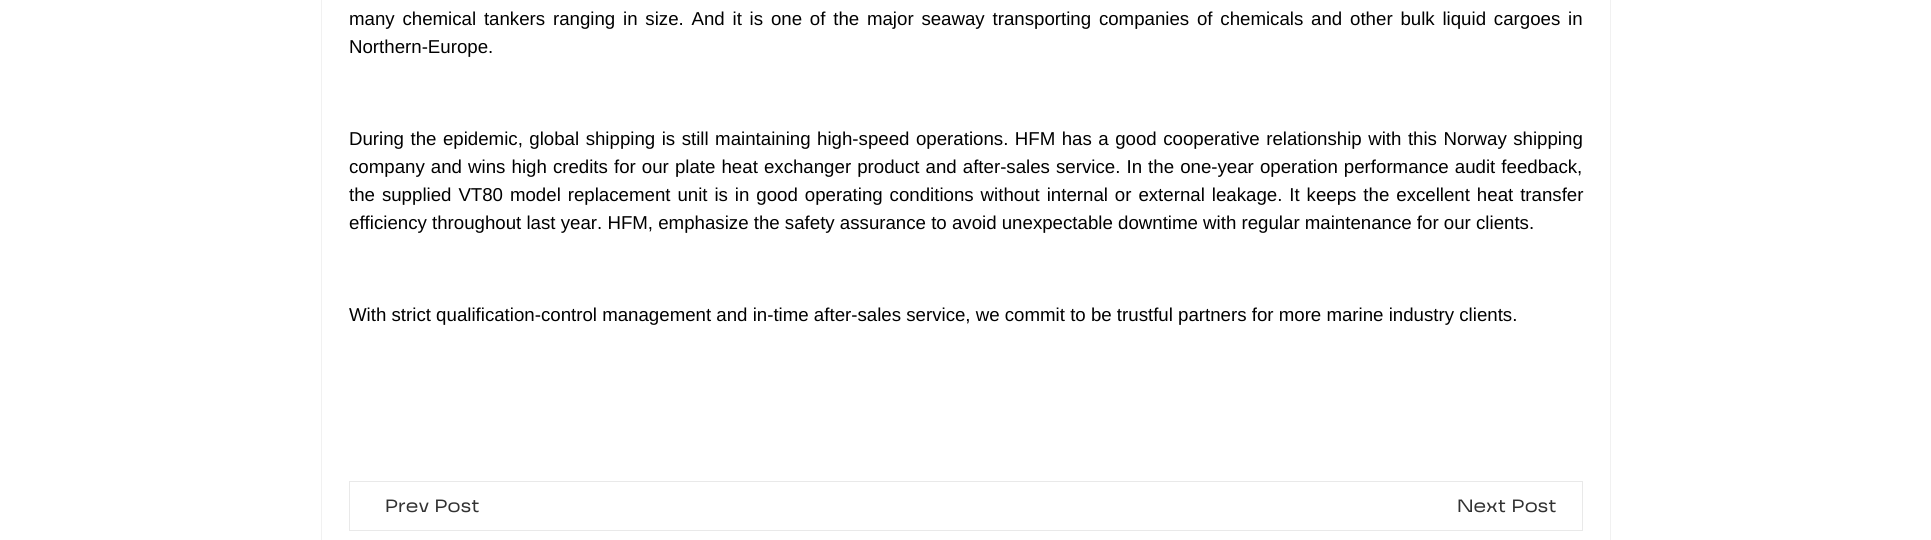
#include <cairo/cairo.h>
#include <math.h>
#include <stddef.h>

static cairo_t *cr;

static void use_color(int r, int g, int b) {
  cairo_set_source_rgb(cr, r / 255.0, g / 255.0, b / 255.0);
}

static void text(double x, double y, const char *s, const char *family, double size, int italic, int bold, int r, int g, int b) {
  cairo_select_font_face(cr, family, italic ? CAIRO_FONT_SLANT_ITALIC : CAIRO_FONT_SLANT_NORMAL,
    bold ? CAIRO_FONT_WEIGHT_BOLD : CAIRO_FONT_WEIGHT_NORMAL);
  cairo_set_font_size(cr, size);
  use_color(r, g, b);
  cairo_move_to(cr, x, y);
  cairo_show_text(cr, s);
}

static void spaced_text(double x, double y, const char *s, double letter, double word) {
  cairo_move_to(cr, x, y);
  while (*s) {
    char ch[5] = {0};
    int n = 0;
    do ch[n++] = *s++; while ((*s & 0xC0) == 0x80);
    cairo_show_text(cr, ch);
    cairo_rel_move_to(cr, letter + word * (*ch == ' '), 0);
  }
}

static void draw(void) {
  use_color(255, 255, 255);
  cairo_paint(cr);
  cairo_rectangle(cr, 321.5, -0.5, 1289, 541);
  use_color(241, 241, 241);
  cairo_set_line_width(cr, 1);
  cairo_stroke(cr);
  cairo_rectangle(cr, 349.5, 481.5, 1233, 49);
  use_color(233, 233, 233);
  cairo_stroke(cr);
  cairo_select_font_face(cr, "Liberation Sans", CAIRO_FONT_SLANT_NORMAL, CAIRO_FONT_WEIGHT_NORMAL);
  cairo_set_font_size(cr, 18.67);
  use_color(0, 0, 0);
  spaced_text(349, 25, "many chemical tankers ranging in size. And it is one of the major seaway transporting companies of chemicals and other bulk liquid cargoes in", 0, 2.6);
  text(349, 53, "Northern-Europe.", "Liberation Sans", 18.67, 0, 0, 0, 0, 0);
  spaced_text(349, 145, "During the epidemic, global shipping is still maintaining high-speed operations. HFM has a good cooperative relationship with this Norway shipping", 0, 1.3);
  spaced_text(349, 173, "company and wins high credits for our plate heat exchanger product and after-sales service. In the one-year operation performance audit feedback,", 0, 0.9);
  spaced_text(349, 201, "the supplied VT80 model replacement unit is in good operating conditions without internal or external leakage. It keeps the excellent heat transfer", 0, 1.75);
  text(349, 229, "efficiency throughout last year. HFM, emphasize the safety assurance to avoid unexpectable downtime with regular maintenance for our clients.", "Liberation Sans", 18.67, 0, 0, 0, 0, 0);
  text(349, 321, "With strict qualification-control management and in-time after-sales service, we commit to be trustful partners for more marine industry clients.", "Liberation Sans", 18.67, 0, 0, 0, 0, 0);
  text(385, 512, "Prev Post", "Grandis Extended", 18, 0, 0, 50, 50, 50);
  text(1457, 512, "Next Post", "Grandis Extended", 18, 0, 0, 50, 50, 50);
}

int main(void) {
  cairo_surface_t *surface = cairo_image_surface_create(CAIRO_FORMAT_RGB24, 1931, 540);
  cr = cairo_create(surface);
  cairo_font_options_t *options = cairo_font_options_create();
  cairo_font_options_set_hint_metrics(options, CAIRO_HINT_METRICS_OFF);
  cairo_font_options_set_hint_style(options, CAIRO_HINT_STYLE_NONE);
  cairo_set_font_options(cr, options);
  cairo_set_miter_limit(cr, 4);
  draw();
  cairo_surface_write_to_png(surface, "out.png");
  cairo_font_options_destroy(options);
  cairo_destroy(cr);
  cairo_surface_destroy(surface);
  return 0;
}
